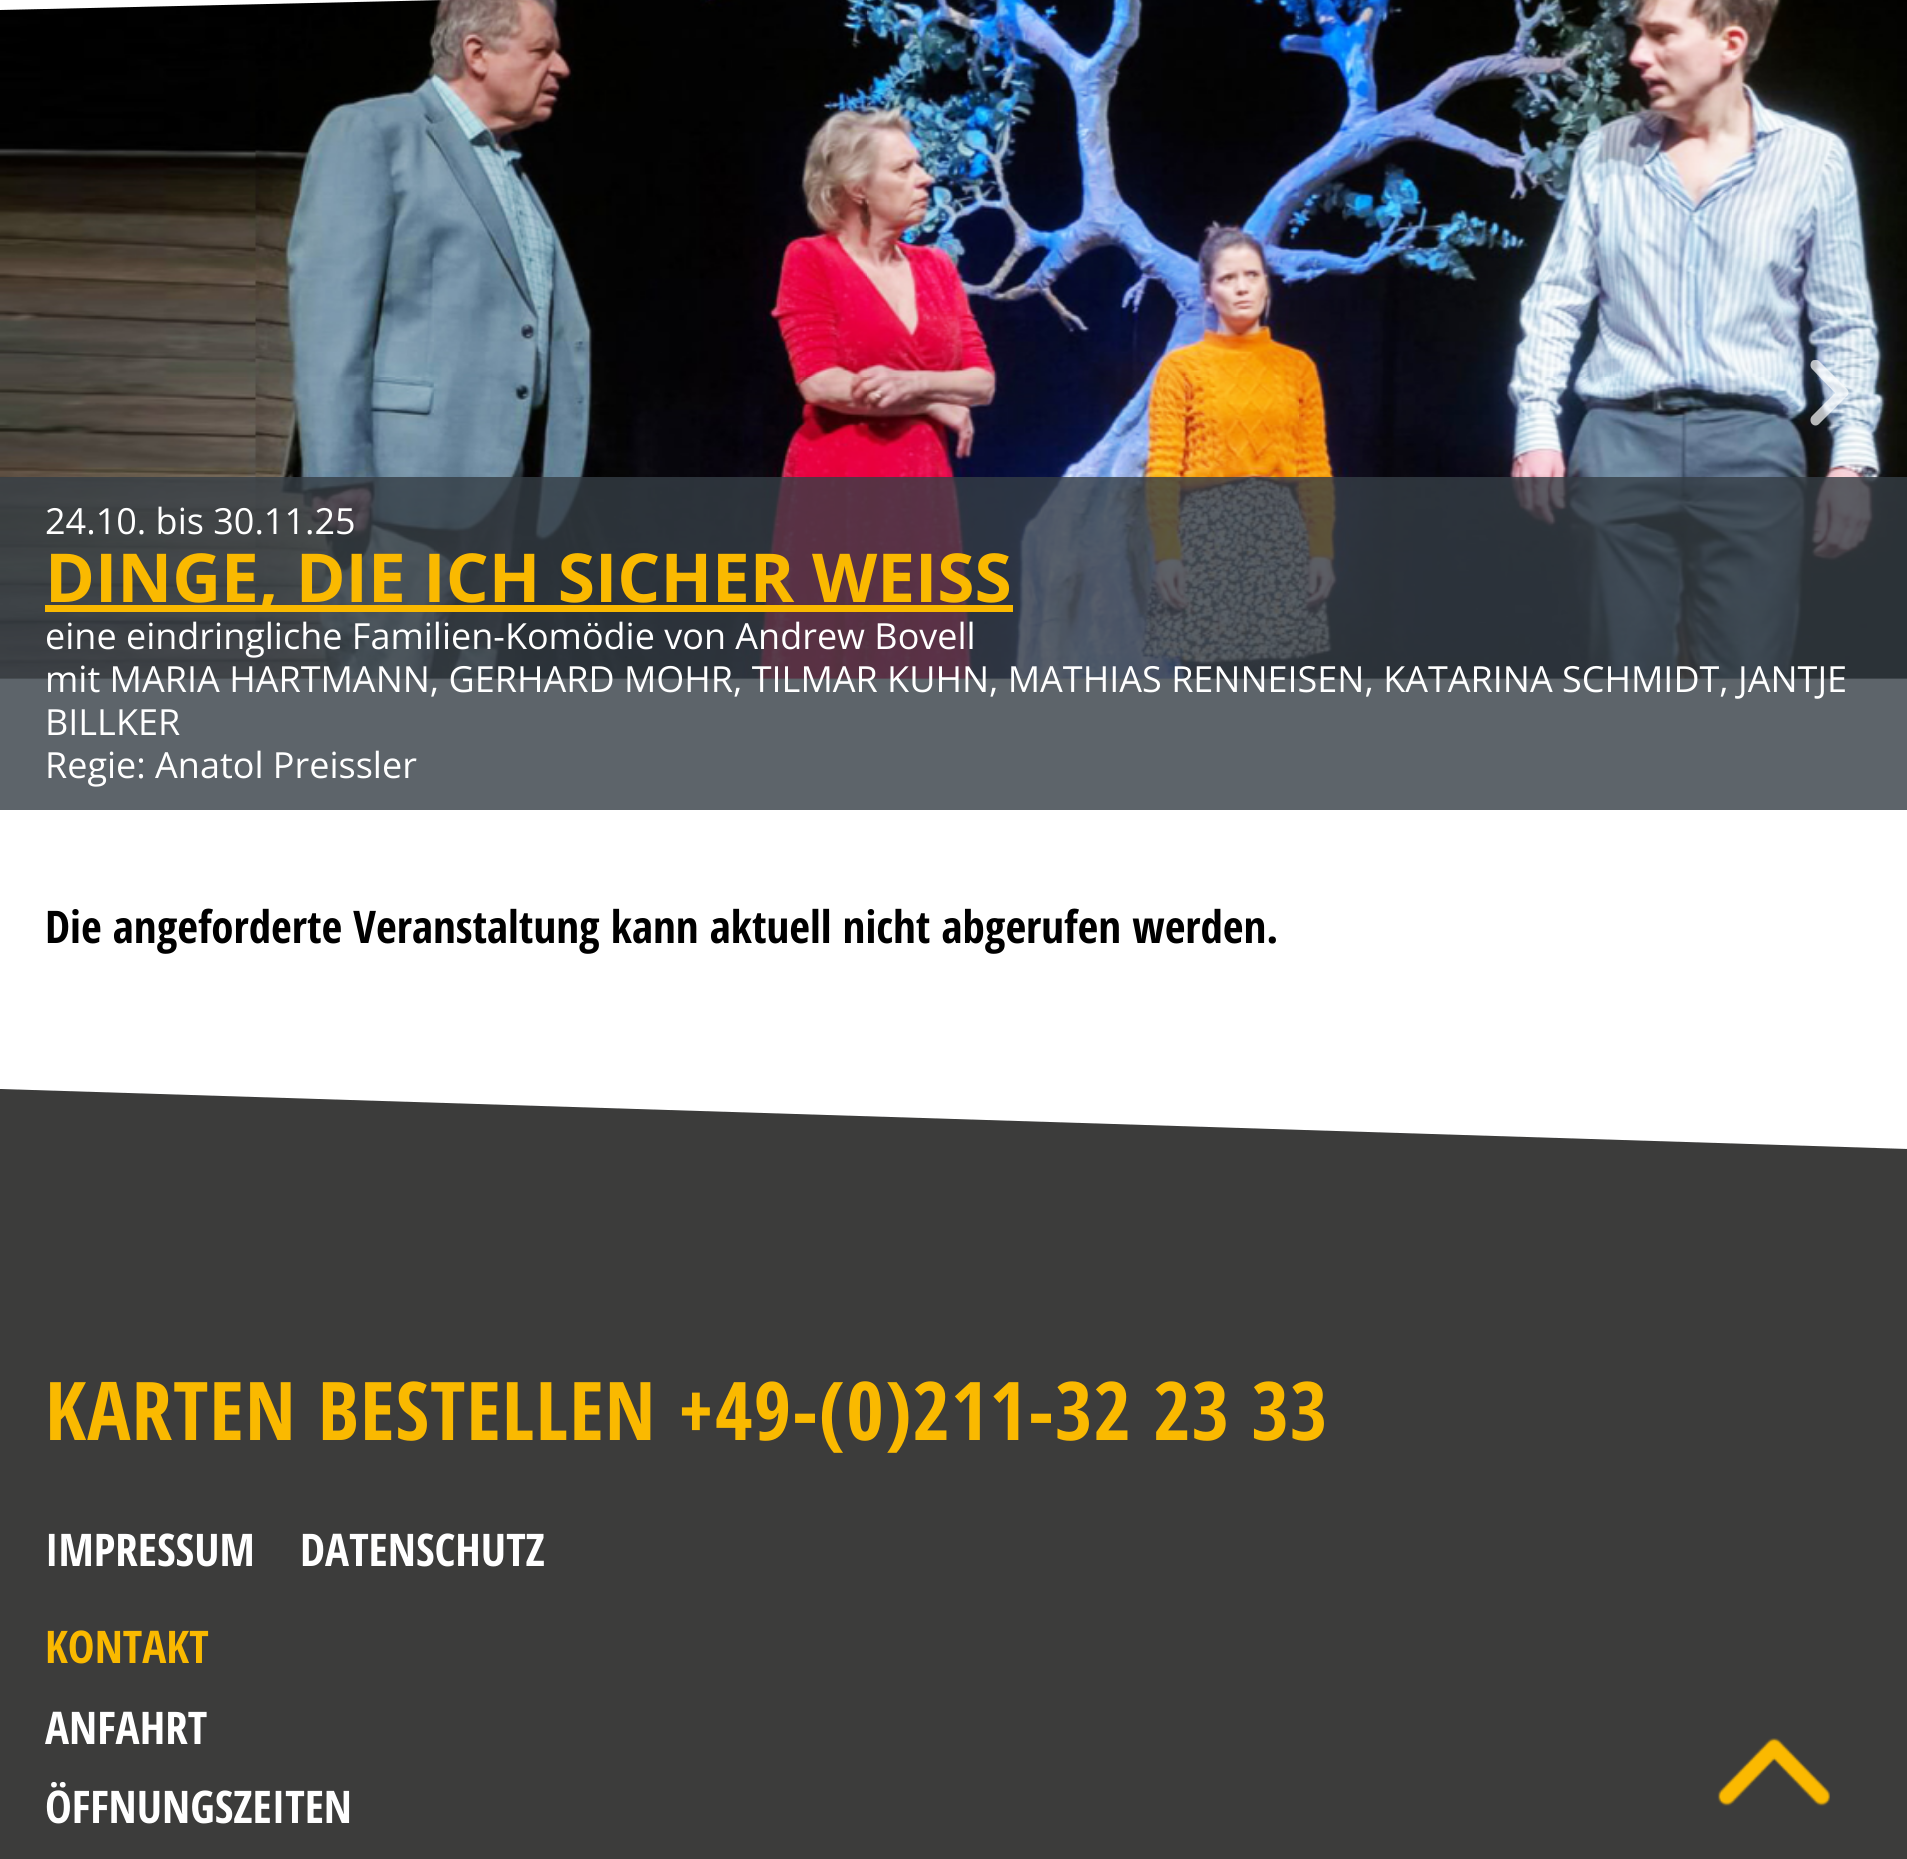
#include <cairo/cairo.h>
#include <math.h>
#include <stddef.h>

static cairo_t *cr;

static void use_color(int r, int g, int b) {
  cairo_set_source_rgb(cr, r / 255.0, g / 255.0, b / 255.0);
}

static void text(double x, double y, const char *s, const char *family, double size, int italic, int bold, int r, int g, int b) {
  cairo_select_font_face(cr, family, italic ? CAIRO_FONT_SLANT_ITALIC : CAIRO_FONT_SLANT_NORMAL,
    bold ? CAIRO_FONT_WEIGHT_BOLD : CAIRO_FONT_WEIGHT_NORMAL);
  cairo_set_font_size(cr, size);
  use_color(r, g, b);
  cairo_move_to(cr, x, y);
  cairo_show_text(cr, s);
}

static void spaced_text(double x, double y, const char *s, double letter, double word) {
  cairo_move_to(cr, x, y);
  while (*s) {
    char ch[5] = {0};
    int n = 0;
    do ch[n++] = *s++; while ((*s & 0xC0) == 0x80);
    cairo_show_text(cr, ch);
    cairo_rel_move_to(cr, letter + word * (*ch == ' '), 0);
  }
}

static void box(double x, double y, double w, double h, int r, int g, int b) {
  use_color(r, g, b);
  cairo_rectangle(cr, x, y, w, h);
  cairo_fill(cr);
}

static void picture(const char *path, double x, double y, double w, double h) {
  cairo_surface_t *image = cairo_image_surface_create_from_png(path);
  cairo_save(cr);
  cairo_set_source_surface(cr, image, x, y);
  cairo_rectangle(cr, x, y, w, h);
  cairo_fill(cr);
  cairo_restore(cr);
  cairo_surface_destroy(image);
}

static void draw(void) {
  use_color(255, 255, 255);
  cairo_paint(cr);
  picture("img_01.png", 0, 0, 1907, 679);
  use_color(255, 255, 255);
  cairo_new_path(cr);
  cairo_move_to(cr, 0, -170);
  cairo_line_to(cr, 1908, -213);
  cairo_line_to(cr, 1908, -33);
  cairo_line_to(cr, 0, 10);
  cairo_close_path(cr);
  cairo_fill(cr);
  cairo_set_source_rgba(cr, 1, 1, 1, 0.7);
  cairo_new_path(cr);
  cairo_move_to(cr, 1847, 396);
  cairo_line_to(cr, 1819, 424);
  cairo_curve_to(cr, 1817, 426, 1814, 426, 1812, 424);
  cairo_curve_to(cr, 1810, 422, 1810, 418, 1812, 416);
  cairo_line_to(cr, 1835, 393);
  cairo_line_to(cr, 1812, 369);
  cairo_curve_to(cr, 1810, 367, 1810, 363, 1812, 361);
  cairo_curve_to(cr, 1813, 360, 1814, 360, 1816, 360);
  cairo_curve_to(cr, 1817, 360, 1818, 360, 1819, 361);
  cairo_line_to(cr, 1847, 389);
  cairo_curve_to(cr, 1849, 391, 1849, 394, 1847, 396);
  cairo_close_path(cr);
  cairo_fill(cr);
  cairo_set_source_rgba(cr, 0.208, 0.243, 0.271, 0.8);
  cairo_rectangle(cr, 0, 477, 1907, 333);
  cairo_fill(cr);
  box(45, 605, 968, 7, 250, 185, 0);
  box(0, 1240, 1907, 619, 60, 60, 59);
  cairo_new_path(cr);
  cairo_move_to(cr, 0, 1089);
  cairo_line_to(cr, 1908, 1149);
  cairo_line_to(cr, 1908, 1300);
  cairo_line_to(cr, 0, 1240);
  cairo_close_path(cr);
  cairo_fill(cr);
  picture("img_02.png", 1717, 1738, 113, 68);
  text(45, 534, "24.10. bis 30.11.25", "Open Sans", 36, 0, 0, 255, 255, 255);
  text(45, 602, "DINGE, DIE ICH SICHER WEISS", "Open Sans", 67.5, 0, 1, 250, 185, 0);
  text(45, 649, "eine eindringliche Familien-Komödie von Andrew Bovell", "Open Sans", 36, 0, 0, 255, 255, 255);
  text(45, 692, "mit MARIA HARTMANN, GERHARD MOHR, TILMAR KUHN, MATHIAS RENNEISEN, KATARINA SCHMIDT, JANTJE", "Open Sans", 36, 0, 0, 255, 255, 255);
  text(45, 735, "BILLKER", "Open Sans", 36, 0, 0, 255, 255, 255);
  text(45, 778, "Regie: Anatol Preissler", "Open Sans", 36, 0, 0, 255, 255, 255);
  text(45, 943, "Die angeforderte Veranstaltung kann aktuell nicht abgerufen werden.", "Open Sans Condensed", 45, 0, 1, 0, 0, 0);
  cairo_set_font_size(cr, 81);
  use_color(250, 185, 0);
  spaced_text(45, 1440, "KARTEN BESTELLEN +49-(0)211-32 23 33", 1.1, 0);
  text(45, 1566, "IMPRESSUM", "Open Sans Condensed", 45, 0, 1, 255, 255, 255);
  text(300, 1566, "DATENSCHUTZ", "Open Sans Condensed", 45, 0, 1, 255, 255, 255);
  text(45, 1663, "KONTAKT", "Open Sans Condensed", 45, 0, 1, 250, 185, 0);
  text(45, 1744, "ANFAHRT", "Open Sans Condensed", 45, 0, 1, 255, 255, 255);
  text(45, 1823, "ÖFFNUNGSZEITEN", "Open Sans Condensed", 45, 0, 1, 255, 255, 255);
}

int main(void) {
  cairo_surface_t *surface = cairo_image_surface_create(CAIRO_FORMAT_RGB24, 1907, 1859);
  cr = cairo_create(surface);
  cairo_font_options_t *options = cairo_font_options_create();
  cairo_font_options_set_hint_metrics(options, CAIRO_HINT_METRICS_OFF);
  cairo_font_options_set_hint_style(options, CAIRO_HINT_STYLE_NONE);
  cairo_set_font_options(cr, options);
  cairo_set_miter_limit(cr, 4);
  draw();
  cairo_surface_write_to_png(surface, "out.png");
  cairo_font_options_destroy(options);
  cairo_destroy(cr);
  cairo_surface_destroy(surface);
  return 0;
}
